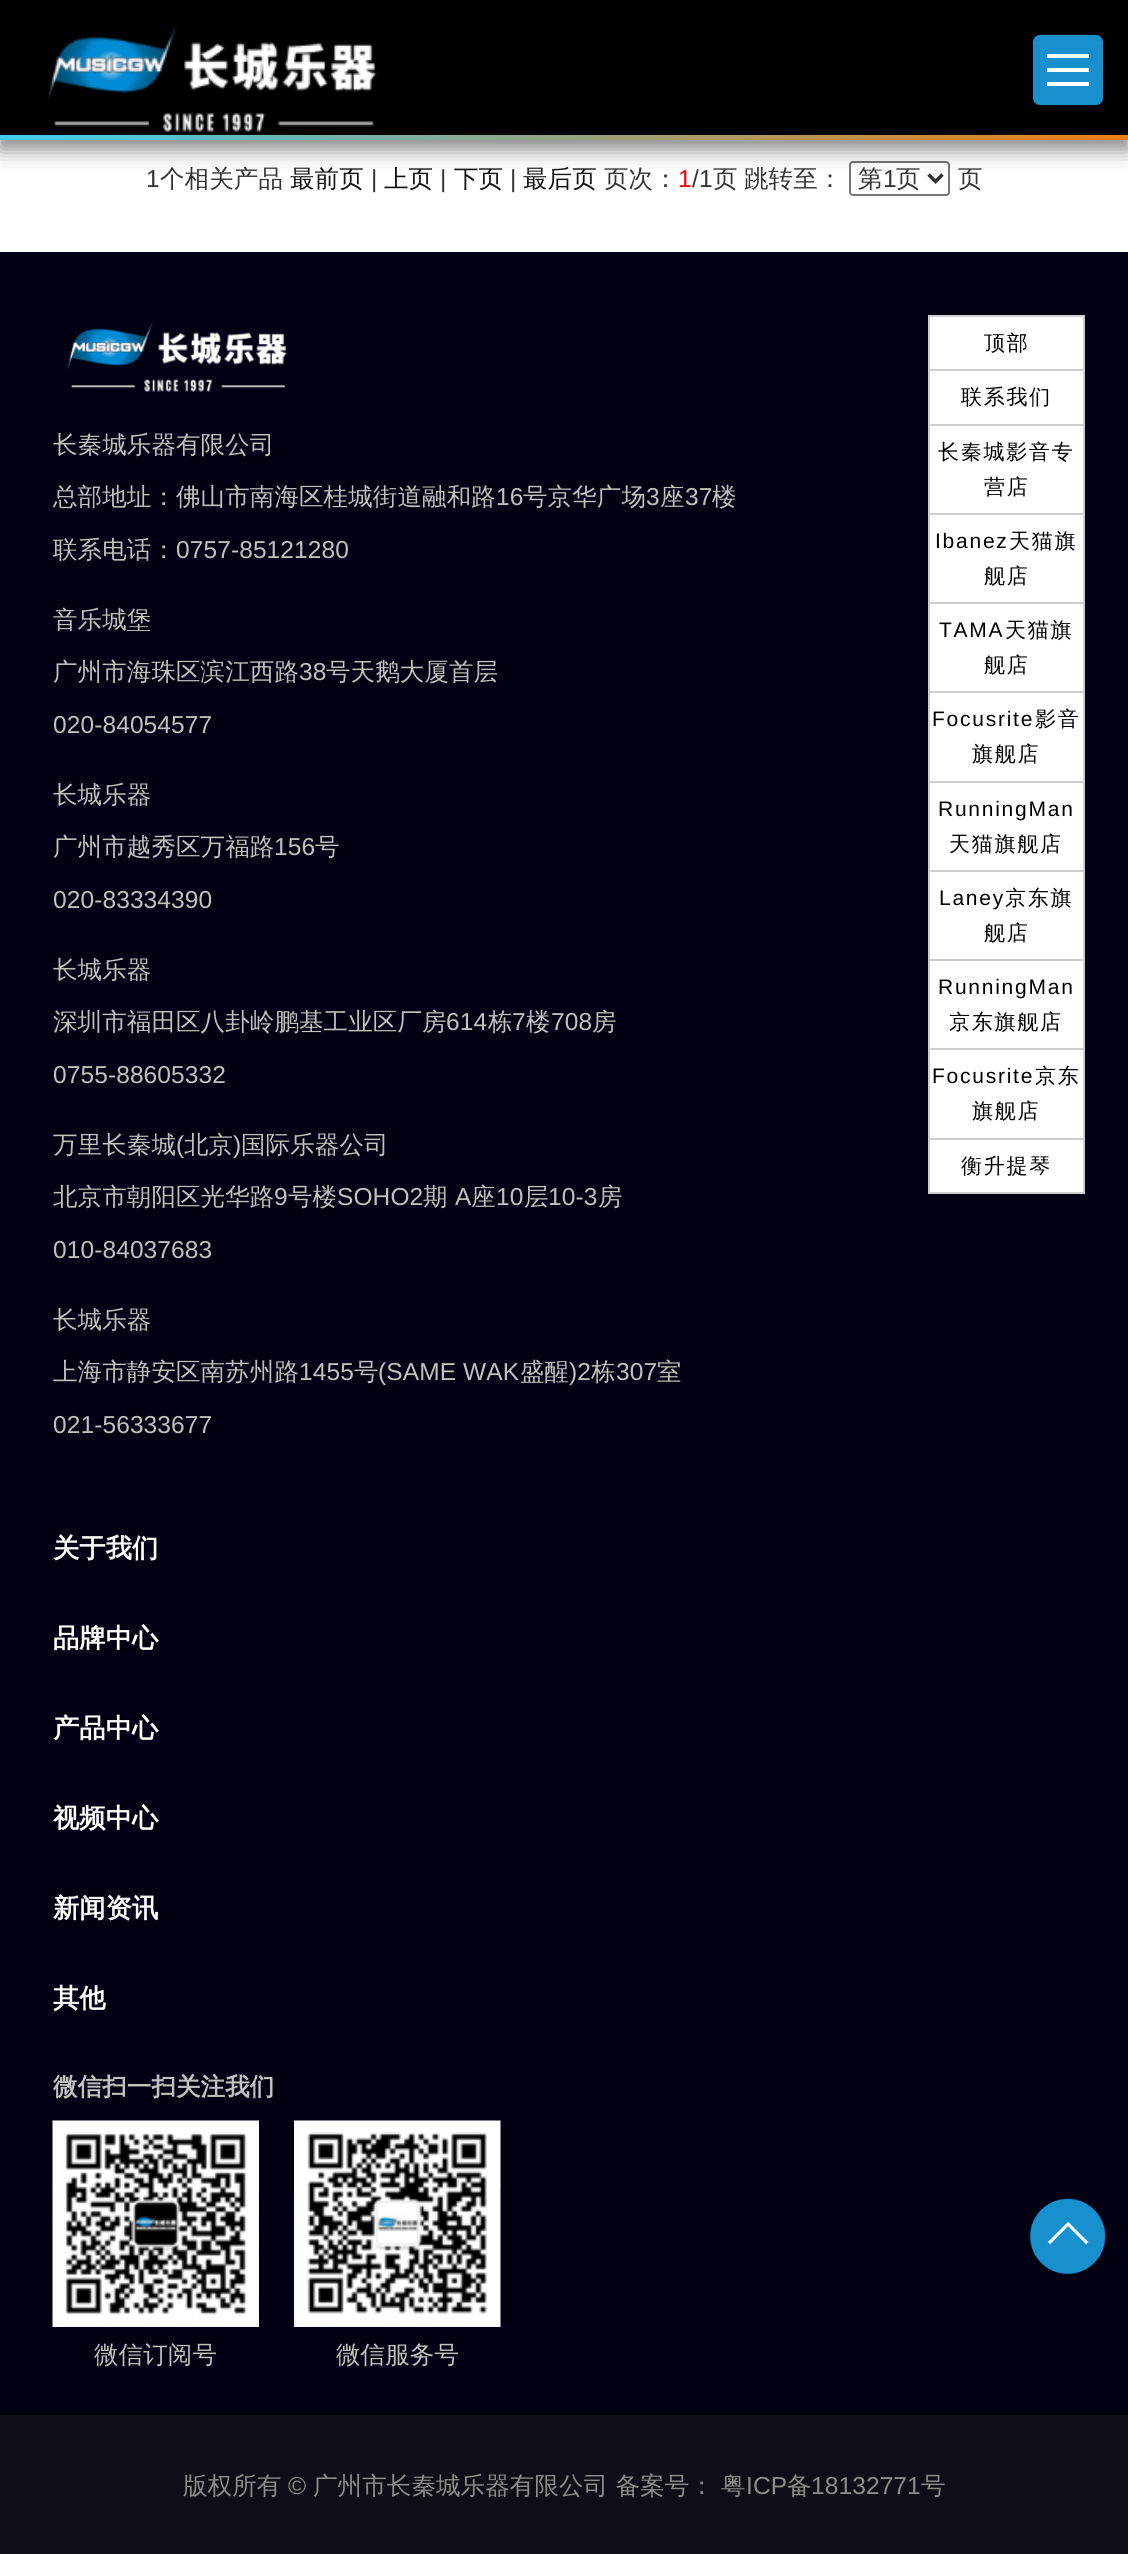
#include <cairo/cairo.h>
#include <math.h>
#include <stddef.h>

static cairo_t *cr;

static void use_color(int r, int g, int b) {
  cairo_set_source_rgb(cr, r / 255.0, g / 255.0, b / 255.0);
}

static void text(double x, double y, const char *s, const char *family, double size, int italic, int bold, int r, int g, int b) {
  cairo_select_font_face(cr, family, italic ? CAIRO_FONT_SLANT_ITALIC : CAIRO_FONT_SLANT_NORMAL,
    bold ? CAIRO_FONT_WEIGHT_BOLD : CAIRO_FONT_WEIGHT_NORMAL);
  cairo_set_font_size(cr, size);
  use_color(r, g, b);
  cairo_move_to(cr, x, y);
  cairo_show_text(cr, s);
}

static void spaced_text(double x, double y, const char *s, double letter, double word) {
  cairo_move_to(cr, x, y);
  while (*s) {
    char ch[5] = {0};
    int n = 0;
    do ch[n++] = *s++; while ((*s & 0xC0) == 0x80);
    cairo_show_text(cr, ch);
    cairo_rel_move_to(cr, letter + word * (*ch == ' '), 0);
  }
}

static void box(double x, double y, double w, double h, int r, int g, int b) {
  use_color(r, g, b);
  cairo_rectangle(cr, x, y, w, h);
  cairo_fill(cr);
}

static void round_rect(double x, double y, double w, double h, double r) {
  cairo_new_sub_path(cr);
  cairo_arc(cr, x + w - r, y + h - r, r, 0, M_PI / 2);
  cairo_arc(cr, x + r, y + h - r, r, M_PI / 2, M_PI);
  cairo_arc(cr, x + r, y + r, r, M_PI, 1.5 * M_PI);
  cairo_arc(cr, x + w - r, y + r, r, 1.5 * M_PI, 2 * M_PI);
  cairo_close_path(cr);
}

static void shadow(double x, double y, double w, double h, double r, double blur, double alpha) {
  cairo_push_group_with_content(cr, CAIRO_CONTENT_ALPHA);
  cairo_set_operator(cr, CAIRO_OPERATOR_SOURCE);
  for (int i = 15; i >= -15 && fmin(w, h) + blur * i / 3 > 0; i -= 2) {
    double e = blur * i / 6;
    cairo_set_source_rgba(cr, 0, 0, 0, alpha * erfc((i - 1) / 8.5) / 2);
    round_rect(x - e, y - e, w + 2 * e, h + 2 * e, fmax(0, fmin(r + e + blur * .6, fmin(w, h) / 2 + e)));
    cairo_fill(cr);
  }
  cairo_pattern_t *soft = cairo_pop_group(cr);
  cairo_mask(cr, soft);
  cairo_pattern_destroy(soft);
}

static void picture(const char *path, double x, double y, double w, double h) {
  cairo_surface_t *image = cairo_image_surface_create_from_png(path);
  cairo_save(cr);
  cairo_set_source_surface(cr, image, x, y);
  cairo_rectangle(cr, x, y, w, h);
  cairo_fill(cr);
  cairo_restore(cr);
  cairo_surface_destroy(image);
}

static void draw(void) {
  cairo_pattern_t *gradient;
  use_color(255, 255, 255);
  cairo_paint(cr);
  round_rect(850, 162, 99, 33, 3);
  use_color(118, 118, 118);
  cairo_stroke(cr);
  cairo_new_path(cr);
  cairo_move_to(cr, 928.5, 174.5);
  cairo_line_to(cr, 935.5, 181.5);
  cairo_line_to(cr, 942.5, 174.5);
  use_color(51, 51, 51);
  cairo_set_line_width(cr, 3.5);
  cairo_stroke(cr);
  use_color(0, 0, 0);
  shadow(0, 9, 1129, 140, 0, 10.5, 0.5);
  box(0, 0, 1128, 135, 0, 0, 0);
  picture("img_01.png", 47, 26, 330, 106);
  use_color(23, 144, 205);
  round_rect(1033, 35, 70, 70, 7);
  cairo_fill(cr);
  box(1047, 54, 42, 4, 255, 255, 255);
  box(1047, 68, 42, 4, 255, 255, 255);
  box(1047, 82, 42, 4, 255, 255, 255);
  gradient = cairo_pattern_create_linear(0, 137, 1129, 137);
  cairo_pattern_add_color_stop_rgba(gradient, 0, 0.243, 0.796, 0.933, 1);
  cairo_pattern_add_color_stop_rgba(gradient, 1, 0.925, 0.49, 0.078, 1);
  cairo_set_source(cr, gradient);
  cairo_pattern_destroy(gradient);
  cairo_rectangle(cr, 0, 135, 1128, 5);
  cairo_fill(cr);
  box(0, 252, 1128, 2163, 2, 1, 20);
  picture("img_02.png", 66, 321, 221, 71);
  picture("img_03.png", 52, 2120, 207, 207);
  picture("img_04.png", 294, 2120, 207, 207);
  box(930, 317, 153, 875, 255, 255, 255);
  box(928, 315, 157, 2, 206, 206, 206);
  box(928, 315, 2, 879, 206, 206, 206);
  box(1083, 317, 2, 108, 206, 206, 206);
  box(929, 369, 156, 2, 206, 206, 206);
  box(929, 424, 156, 2, 206, 206, 206);
  box(1083, 425, 2, 357, 206, 206, 206);
  box(929, 513, 156, 2, 206, 206, 206);
  box(929, 602, 156, 2, 206, 206, 206);
  box(929, 691, 156, 2, 206, 206, 206);
  box(929, 781, 156, 2, 206, 206, 206);
  box(1083, 782, 2, 357, 206, 206, 206);
  box(929, 870, 156, 2, 206, 206, 206);
  box(929, 959, 156, 2, 206, 206, 206);
  box(929, 1048, 156, 2, 206, 206, 206);
  box(929, 1138, 156, 2, 206, 206, 206);
  box(1083, 1139, 2, 55, 206, 206, 206);
  box(929, 1192, 156, 2, 206, 206, 206);
  picture("img_05.png", 1029, 2198, 77, 77);
  box(0, 2415, 1128, 139, 14, 15, 22);
  cairo_select_font_face(cr, "Liberation Sans", CAIRO_FONT_SLANT_NORMAL, CAIRO_FONT_WEIGHT_NORMAL);
  cairo_set_font_size(cr, 24.5);
  use_color(51, 51, 51);
  spaced_text(146, 187, "1", 0.1, 0);
  cairo_select_font_face(cr, "WenQuanYi Zen Hei Medium", CAIRO_FONT_SLANT_NORMAL, CAIRO_FONT_WEIGHT_NORMAL);
  spaced_text(160, 187, "个相关产品", 0.1, 0);
  use_color(17, 17, 17);
  spaced_text(290, 187, "最前页", 0.1, 0);
  cairo_select_font_face(cr, "Liberation Sans", CAIRO_FONT_SLANT_NORMAL, CAIRO_FONT_WEIGHT_NORMAL);
  use_color(51, 51, 51);
  spaced_text(371, 187, "|", 0.1, 0);
  cairo_select_font_face(cr, "WenQuanYi Zen Hei Medium", CAIRO_FONT_SLANT_NORMAL, CAIRO_FONT_WEIGHT_NORMAL);
  use_color(17, 17, 17);
  spaced_text(384, 187, "上页", 0.1, 0);
  cairo_select_font_face(cr, "Liberation Sans", CAIRO_FONT_SLANT_NORMAL, CAIRO_FONT_WEIGHT_NORMAL);
  use_color(51, 51, 51);
  spaced_text(440, 187, "|", 0.1, 0);
  cairo_select_font_face(cr, "WenQuanYi Zen Hei Medium", CAIRO_FONT_SLANT_NORMAL, CAIRO_FONT_WEIGHT_NORMAL);
  use_color(17, 17, 17);
  spaced_text(454, 187, "下页", 0.1, 0);
  cairo_select_font_face(cr, "Liberation Sans", CAIRO_FONT_SLANT_NORMAL, CAIRO_FONT_WEIGHT_NORMAL);
  use_color(51, 51, 51);
  spaced_text(510, 187, "|", 0.1, 0);
  cairo_select_font_face(cr, "WenQuanYi Zen Hei Medium", CAIRO_FONT_SLANT_NORMAL, CAIRO_FONT_WEIGHT_NORMAL);
  use_color(17, 17, 17);
  spaced_text(523, 187, "最后页", 0.1, 0);
  use_color(51, 51, 51);
  spaced_text(604, 187, "页次：", 0.1, 0);
  cairo_select_font_face(cr, "Liberation Sans", CAIRO_FONT_SLANT_NORMAL, CAIRO_FONT_WEIGHT_NORMAL);
  use_color(255, 0, 0);
  spaced_text(678, 187, "1", 0.1, 0);
  use_color(51, 51, 51);
  spaced_text(692, 187, "/1", 0.1, 0);
  cairo_select_font_face(cr, "WenQuanYi Zen Hei Medium", CAIRO_FONT_SLANT_NORMAL, CAIRO_FONT_WEIGHT_NORMAL);
  spaced_text(713, 187, "页", 0.1, 0);
  spaced_text(744, 187, "跳转至：", 0.1, 0);
  text(858, 187, "第", "WenQuanYi Zen Hei Medium", 24.5, 0, 0, 51, 51, 51);
  text(883, 187, "1", "Liberation Sans", 24.5, 0, 0, 51, 51, 51);
  text(896, 187, "页", "WenQuanYi Zen Hei Medium", 24.5, 0, 0, 51, 51, 51);
  spaced_text(958, 187, "页", 0.1, 0);
  use_color(193, 193, 193);
  spaced_text(53, 453, "长秦城乐器有限公司", 0.1, 0);
  spaced_text(53, 505, "总部地址：佛山市南海区桂城街道融和路", 0.1, 0);
  cairo_select_font_face(cr, "Liberation Sans", CAIRO_FONT_SLANT_NORMAL, CAIRO_FONT_WEIGHT_NORMAL);
  spaced_text(496, 505, "16", 0.1, 0);
  cairo_select_font_face(cr, "WenQuanYi Zen Hei Medium", CAIRO_FONT_SLANT_NORMAL, CAIRO_FONT_WEIGHT_NORMAL);
  spaced_text(523, 505, "号京华广场", 0.1, 0);
  cairo_select_font_face(cr, "Liberation Sans", CAIRO_FONT_SLANT_NORMAL, CAIRO_FONT_WEIGHT_NORMAL);
  spaced_text(646, 505, "3", 0.1, 0);
  cairo_select_font_face(cr, "WenQuanYi Zen Hei Medium", CAIRO_FONT_SLANT_NORMAL, CAIRO_FONT_WEIGHT_NORMAL);
  spaced_text(660, 505, "座", 0.1, 0);
  cairo_select_font_face(cr, "Liberation Sans", CAIRO_FONT_SLANT_NORMAL, CAIRO_FONT_WEIGHT_NORMAL);
  spaced_text(685, 505, "37", 0.1, 0);
  cairo_select_font_face(cr, "WenQuanYi Zen Hei Medium", CAIRO_FONT_SLANT_NORMAL, CAIRO_FONT_WEIGHT_NORMAL);
  spaced_text(712, 505, "楼", 0.1, 0);
  spaced_text(53, 558, "联系电话：", 0.1, 0);
  cairo_select_font_face(cr, "Liberation Sans", CAIRO_FONT_SLANT_NORMAL, CAIRO_FONT_WEIGHT_NORMAL);
  spaced_text(176, 558, "0757-85121280", 0.1, 0);
  cairo_select_font_face(cr, "WenQuanYi Zen Hei Medium", CAIRO_FONT_SLANT_NORMAL, CAIRO_FONT_WEIGHT_NORMAL);
  spaced_text(53, 628, "音乐城堡", 0.1, 0);
  spaced_text(53, 680, "广州市海珠区滨江西路", 0.1, 0);
  cairo_select_font_face(cr, "Liberation Sans", CAIRO_FONT_SLANT_NORMAL, CAIRO_FONT_WEIGHT_NORMAL);
  spaced_text(299, 680, "38", 0.1, 0);
  cairo_select_font_face(cr, "WenQuanYi Zen Hei Medium", CAIRO_FONT_SLANT_NORMAL, CAIRO_FONT_WEIGHT_NORMAL);
  spaced_text(326, 680, "号天鹅大厦首层", 0.1, 0);
  cairo_select_font_face(cr, "Liberation Sans", CAIRO_FONT_SLANT_NORMAL, CAIRO_FONT_WEIGHT_NORMAL);
  spaced_text(53, 733, "020-84054577", 0.1, 0);
  cairo_select_font_face(cr, "WenQuanYi Zen Hei Medium", CAIRO_FONT_SLANT_NORMAL, CAIRO_FONT_WEIGHT_NORMAL);
  spaced_text(53, 803, "长城乐器", 0.1, 0);
  spaced_text(53, 855, "广州市越秀区万福路", 0.1, 0);
  cairo_select_font_face(cr, "Liberation Sans", CAIRO_FONT_SLANT_NORMAL, CAIRO_FONT_WEIGHT_NORMAL);
  spaced_text(274, 855, "156", 0.1, 0);
  cairo_select_font_face(cr, "WenQuanYi Zen Hei Medium", CAIRO_FONT_SLANT_NORMAL, CAIRO_FONT_WEIGHT_NORMAL);
  spaced_text(315, 855, "号", 0.1, 0);
  cairo_select_font_face(cr, "Liberation Sans", CAIRO_FONT_SLANT_NORMAL, CAIRO_FONT_WEIGHT_NORMAL);
  spaced_text(53, 908, "020-83334390", 0.1, 0);
  cairo_select_font_face(cr, "WenQuanYi Zen Hei Medium", CAIRO_FONT_SLANT_NORMAL, CAIRO_FONT_WEIGHT_NORMAL);
  spaced_text(53, 978, "长城乐器", 0.1, 0);
  spaced_text(53, 1030, "深圳市福田区八卦岭鹏基工业区厂房", 0.1, 0);
  cairo_select_font_face(cr, "Liberation Sans", CAIRO_FONT_SLANT_NORMAL, CAIRO_FONT_WEIGHT_NORMAL);
  spaced_text(446, 1030, "614", 0.1, 0);
  cairo_select_font_face(cr, "WenQuanYi Zen Hei Medium", CAIRO_FONT_SLANT_NORMAL, CAIRO_FONT_WEIGHT_NORMAL);
  spaced_text(488, 1030, "栋", 0.1, 0);
  cairo_select_font_face(cr, "Liberation Sans", CAIRO_FONT_SLANT_NORMAL, CAIRO_FONT_WEIGHT_NORMAL);
  spaced_text(512, 1030, "7", 0.1, 0);
  cairo_select_font_face(cr, "WenQuanYi Zen Hei Medium", CAIRO_FONT_SLANT_NORMAL, CAIRO_FONT_WEIGHT_NORMAL);
  spaced_text(526, 1030, "楼", 0.1, 0);
  cairo_select_font_face(cr, "Liberation Sans", CAIRO_FONT_SLANT_NORMAL, CAIRO_FONT_WEIGHT_NORMAL);
  spaced_text(551, 1030, "708", 0.1, 0);
  cairo_select_font_face(cr, "WenQuanYi Zen Hei Medium", CAIRO_FONT_SLANT_NORMAL, CAIRO_FONT_WEIGHT_NORMAL);
  spaced_text(592, 1030, "房", 0.1, 0);
  cairo_select_font_face(cr, "Liberation Sans", CAIRO_FONT_SLANT_NORMAL, CAIRO_FONT_WEIGHT_NORMAL);
  spaced_text(53, 1083, "0755-88605332", 0.1, 0);
  cairo_select_font_face(cr, "WenQuanYi Zen Hei Medium", CAIRO_FONT_SLANT_NORMAL, CAIRO_FONT_WEIGHT_NORMAL);
  spaced_text(53, 1153, "万里长秦城", 0.1, 0);
  cairo_select_font_face(cr, "Liberation Sans", CAIRO_FONT_SLANT_NORMAL, CAIRO_FONT_WEIGHT_NORMAL);
  spaced_text(176, 1153, "(", 0.1, 0);
  cairo_select_font_face(cr, "WenQuanYi Zen Hei Medium", CAIRO_FONT_SLANT_NORMAL, CAIRO_FONT_WEIGHT_NORMAL);
  spaced_text(184, 1153, "北京", 0.1, 0);
  cairo_select_font_face(cr, "Liberation Sans", CAIRO_FONT_SLANT_NORMAL, CAIRO_FONT_WEIGHT_NORMAL);
  spaced_text(233, 1153, ")", 0.1, 0);
  cairo_select_font_face(cr, "WenQuanYi Zen Hei Medium", CAIRO_FONT_SLANT_NORMAL, CAIRO_FONT_WEIGHT_NORMAL);
  spaced_text(241, 1153, "国际乐器公司", 0.1, 0);
  spaced_text(53, 1205, "北京市朝阳区光华路", 0.1, 0);
  cairo_select_font_face(cr, "Liberation Sans", CAIRO_FONT_SLANT_NORMAL, CAIRO_FONT_WEIGHT_NORMAL);
  spaced_text(274, 1205, "9", 0.1, 0);
  cairo_select_font_face(cr, "WenQuanYi Zen Hei Medium", CAIRO_FONT_SLANT_NORMAL, CAIRO_FONT_WEIGHT_NORMAL);
  spaced_text(288, 1205, "号楼", 0.1, 0);
  cairo_select_font_face(cr, "Liberation Sans", CAIRO_FONT_SLANT_NORMAL, CAIRO_FONT_WEIGHT_NORMAL);
  spaced_text(337, 1205, "SOHO2", 0.1, 0);
  cairo_select_font_face(cr, "WenQuanYi Zen Hei Medium", CAIRO_FONT_SLANT_NORMAL, CAIRO_FONT_WEIGHT_NORMAL);
  spaced_text(423, 1205, "期", 0.1, 0);
  cairo_select_font_face(cr, "Liberation Sans", CAIRO_FONT_SLANT_NORMAL, CAIRO_FONT_WEIGHT_NORMAL);
  spaced_text(455, 1205, "A", 0.1, 0);
  cairo_select_font_face(cr, "WenQuanYi Zen Hei Medium", CAIRO_FONT_SLANT_NORMAL, CAIRO_FONT_WEIGHT_NORMAL);
  spaced_text(471, 1205, "座", 0.1, 0);
  cairo_select_font_face(cr, "Liberation Sans", CAIRO_FONT_SLANT_NORMAL, CAIRO_FONT_WEIGHT_NORMAL);
  spaced_text(496, 1205, "10", 0.1, 0);
  cairo_select_font_face(cr, "WenQuanYi Zen Hei Medium", CAIRO_FONT_SLANT_NORMAL, CAIRO_FONT_WEIGHT_NORMAL);
  spaced_text(524, 1205, "层", 0.1, 0);
  cairo_select_font_face(cr, "Liberation Sans", CAIRO_FONT_SLANT_NORMAL, CAIRO_FONT_WEIGHT_NORMAL);
  spaced_text(548, 1205, "10-3", 0.1, 0);
  cairo_select_font_face(cr, "WenQuanYi Zen Hei Medium", CAIRO_FONT_SLANT_NORMAL, CAIRO_FONT_WEIGHT_NORMAL);
  spaced_text(598, 1205, "房", 0.1, 0);
  cairo_select_font_face(cr, "Liberation Sans", CAIRO_FONT_SLANT_NORMAL, CAIRO_FONT_WEIGHT_NORMAL);
  spaced_text(53, 1258, "010-84037683", 0.1, 0);
  cairo_select_font_face(cr, "WenQuanYi Zen Hei Medium", CAIRO_FONT_SLANT_NORMAL, CAIRO_FONT_WEIGHT_NORMAL);
  spaced_text(53, 1328, "长城乐器", 0.1, 0);
  spaced_text(53, 1380, "上海市静安区南苏州路", 0.1, 0);
  cairo_select_font_face(cr, "Liberation Sans", CAIRO_FONT_SLANT_NORMAL, CAIRO_FONT_WEIGHT_NORMAL);
  spaced_text(299, 1380, "1455", 0.1, 0);
  cairo_select_font_face(cr, "WenQuanYi Zen Hei Medium", CAIRO_FONT_SLANT_NORMAL, CAIRO_FONT_WEIGHT_NORMAL);
  spaced_text(354, 1380, "号", 0.1, 0);
  cairo_select_font_face(cr, "Liberation Sans", CAIRO_FONT_SLANT_NORMAL, CAIRO_FONT_WEIGHT_NORMAL);
  spaced_text(378, 1380, "(SAME WAK", 0.1, 0);
  cairo_select_font_face(cr, "WenQuanYi Zen Hei Medium", CAIRO_FONT_SLANT_NORMAL, CAIRO_FONT_WEIGHT_NORMAL);
  spaced_text(520, 1380, "盛醒", 0.1, 0);
  cairo_select_font_face(cr, "Liberation Sans", CAIRO_FONT_SLANT_NORMAL, CAIRO_FONT_WEIGHT_NORMAL);
  spaced_text(569, 1380, ")2", 0.1, 0);
  cairo_select_font_face(cr, "WenQuanYi Zen Hei Medium", CAIRO_FONT_SLANT_NORMAL, CAIRO_FONT_WEIGHT_NORMAL);
  spaced_text(591, 1380, "栋", 0.1, 0);
  cairo_select_font_face(cr, "Liberation Sans", CAIRO_FONT_SLANT_NORMAL, CAIRO_FONT_WEIGHT_NORMAL);
  spaced_text(616, 1380, "307", 0.1, 0);
  cairo_select_font_face(cr, "WenQuanYi Zen Hei Medium", CAIRO_FONT_SLANT_NORMAL, CAIRO_FONT_WEIGHT_NORMAL);
  spaced_text(657, 1380, "室", 0.1, 0);
  cairo_select_font_face(cr, "Liberation Sans", CAIRO_FONT_SLANT_NORMAL, CAIRO_FONT_WEIGHT_NORMAL);
  spaced_text(53, 1433, "021-56333677", 0.1, 0);
  cairo_select_font_face(cr, "WenQuanYi Zen Hei", CAIRO_FONT_SLANT_NORMAL, CAIRO_FONT_WEIGHT_BOLD);
  cairo_set_font_size(cr, 26.25);
  use_color(255, 255, 255);
  spaced_text(53, 1557, "关于我们", 0.1, 0);
  spaced_text(53, 1647, "品牌中心", 0.1, 0);
  spaced_text(53, 1737, "产品中心", 0.1, 0);
  spaced_text(53, 1827, "视频中心", 0.1, 0);
  spaced_text(53, 1917, "新闻资讯", 0.1, 0);
  spaced_text(53, 2007, "其他", 0.1, 0);
  cairo_set_font_size(cr, 24.5);
  use_color(193, 193, 193);
  spaced_text(53, 2095, "微信扫一扫关注我们", 0.1, 0);
  cairo_select_font_face(cr, "WenQuanYi Zen Hei Medium", CAIRO_FONT_SLANT_NORMAL, CAIRO_FONT_WEIGHT_NORMAL);
  spaced_text(94, 2363, "微信订阅号", 0.1, 0);
  spaced_text(336, 2363, "微信服务号", 0.1, 0);
  cairo_set_font_size(cr, 21);
  use_color(0, 0, 0);
  spaced_text(984, 350, "顶部", 1.75, 0);
  spaced_text(961, 404, "联系我们", 1.75, 0);
  spaced_text(938, 459, "长秦城影音专", 1.75, 0);
  spaced_text(984, 494, "营店", 1.75, 0);
  cairo_select_font_face(cr, "Liberation Sans", CAIRO_FONT_SLANT_NORMAL, CAIRO_FONT_WEIGHT_NORMAL);
  spaced_text(935, 548, "Ibanez", 1.75, 0);
  cairo_select_font_face(cr, "WenQuanYi Zen Hei Medium", CAIRO_FONT_SLANT_NORMAL, CAIRO_FONT_WEIGHT_NORMAL);
  spaced_text(1009, 548, "天猫旗", 1.75, 0);
  spaced_text(984, 583, "舰店", 1.75, 0);
  cairo_select_font_face(cr, "Liberation Sans", CAIRO_FONT_SLANT_NORMAL, CAIRO_FONT_WEIGHT_NORMAL);
  spaced_text(939, 637, "TAMA", 1.75, 0);
  cairo_select_font_face(cr, "WenQuanYi Zen Hei Medium", CAIRO_FONT_SLANT_NORMAL, CAIRO_FONT_WEIGHT_NORMAL);
  spaced_text(1005, 637, "天猫旗", 1.75, 0);
  spaced_text(984, 672, "舰店", 1.75, 0);
  cairo_select_font_face(cr, "Liberation Sans", CAIRO_FONT_SLANT_NORMAL, CAIRO_FONT_WEIGHT_NORMAL);
  spaced_text(932, 726, "Focusrite", 1.75, 0);
  cairo_select_font_face(cr, "WenQuanYi Zen Hei Medium", CAIRO_FONT_SLANT_NORMAL, CAIRO_FONT_WEIGHT_NORMAL);
  spaced_text(1035, 726, "影音", 1.75, 0);
  spaced_text(972, 761, "旗舰店", 1.75, 0);
  cairo_select_font_face(cr, "Liberation Sans", CAIRO_FONT_SLANT_NORMAL, CAIRO_FONT_WEIGHT_NORMAL);
  spaced_text(938, 816, "RunningMan", 1.75, 0);
  cairo_select_font_face(cr, "WenQuanYi Zen Hei Medium", CAIRO_FONT_SLANT_NORMAL, CAIRO_FONT_WEIGHT_NORMAL);
  spaced_text(949, 851, "天猫旗舰店", 1.75, 0);
  cairo_select_font_face(cr, "Liberation Sans", CAIRO_FONT_SLANT_NORMAL, CAIRO_FONT_WEIGHT_NORMAL);
  spaced_text(939, 905, "Laney", 1.75, 0);
  cairo_select_font_face(cr, "WenQuanYi Zen Hei Medium", CAIRO_FONT_SLANT_NORMAL, CAIRO_FONT_WEIGHT_NORMAL);
  spaced_text(1005, 905, "京东旗", 1.75, 0);
  spaced_text(984, 940, "舰店", 1.75, 0);
  cairo_select_font_face(cr, "Liberation Sans", CAIRO_FONT_SLANT_NORMAL, CAIRO_FONT_WEIGHT_NORMAL);
  spaced_text(938, 994, "RunningMan", 1.75, 0);
  cairo_select_font_face(cr, "WenQuanYi Zen Hei Medium", CAIRO_FONT_SLANT_NORMAL, CAIRO_FONT_WEIGHT_NORMAL);
  spaced_text(949, 1029, "京东旗舰店", 1.75, 0);
  cairo_select_font_face(cr, "Liberation Sans", CAIRO_FONT_SLANT_NORMAL, CAIRO_FONT_WEIGHT_NORMAL);
  spaced_text(932, 1083, "Focusrite", 1.75, 0);
  cairo_select_font_face(cr, "WenQuanYi Zen Hei Medium", CAIRO_FONT_SLANT_NORMAL, CAIRO_FONT_WEIGHT_NORMAL);
  spaced_text(1035, 1083, "京东", 1.75, 0);
  spaced_text(972, 1118, "旗舰店", 1.75, 0);
  spaced_text(961, 1173, "衡升提琴", 1.75, 0);
  cairo_set_font_size(cr, 24.5);
  use_color(140, 140, 140);
  spaced_text(183, 2494, "版权所有", 0.1, 0);
  cairo_select_font_face(cr, "Liberation Sans", CAIRO_FONT_SLANT_NORMAL, CAIRO_FONT_WEIGHT_NORMAL);
  spaced_text(288, 2494, "©", 0.1, 0);
  cairo_select_font_face(cr, "WenQuanYi Zen Hei Medium", CAIRO_FONT_SLANT_NORMAL, CAIRO_FONT_WEIGHT_NORMAL);
  spaced_text(313, 2494, "广州市长秦城乐器有限公司 备案号：", 0.1, 0);
  spaced_text(721, 2494, "粤", 0.1, 0);
  cairo_select_font_face(cr, "Liberation Sans", CAIRO_FONT_SLANT_NORMAL, CAIRO_FONT_WEIGHT_NORMAL);
  spaced_text(746, 2494, "ICP", 0.1, 0);
  cairo_select_font_face(cr, "WenQuanYi Zen Hei Medium", CAIRO_FONT_SLANT_NORMAL, CAIRO_FONT_WEIGHT_NORMAL);
  spaced_text(787, 2494, "备", 0.1, 0);
  cairo_select_font_face(cr, "Liberation Sans", CAIRO_FONT_SLANT_NORMAL, CAIRO_FONT_WEIGHT_NORMAL);
  spaced_text(811, 2494, "18132771", 0.1, 0);
  cairo_select_font_face(cr, "WenQuanYi Zen Hei Medium", CAIRO_FONT_SLANT_NORMAL, CAIRO_FONT_WEIGHT_NORMAL);
  spaced_text(921, 2494, "号", 0.1, 0);
}

int main(void) {
  cairo_surface_t *surface = cairo_image_surface_create(CAIRO_FORMAT_RGB24, 1128, 2554);
  cr = cairo_create(surface);
  cairo_font_options_t *options = cairo_font_options_create();
  cairo_font_options_set_hint_metrics(options, CAIRO_HINT_METRICS_OFF);
  cairo_font_options_set_hint_style(options, CAIRO_HINT_STYLE_NONE);
  cairo_set_font_options(cr, options);
  cairo_set_miter_limit(cr, 4);
  draw();
  cairo_surface_write_to_png(surface, "out.png");
  cairo_font_options_destroy(options);
  cairo_destroy(cr);
  cairo_surface_destroy(surface);
  return 0;
}
